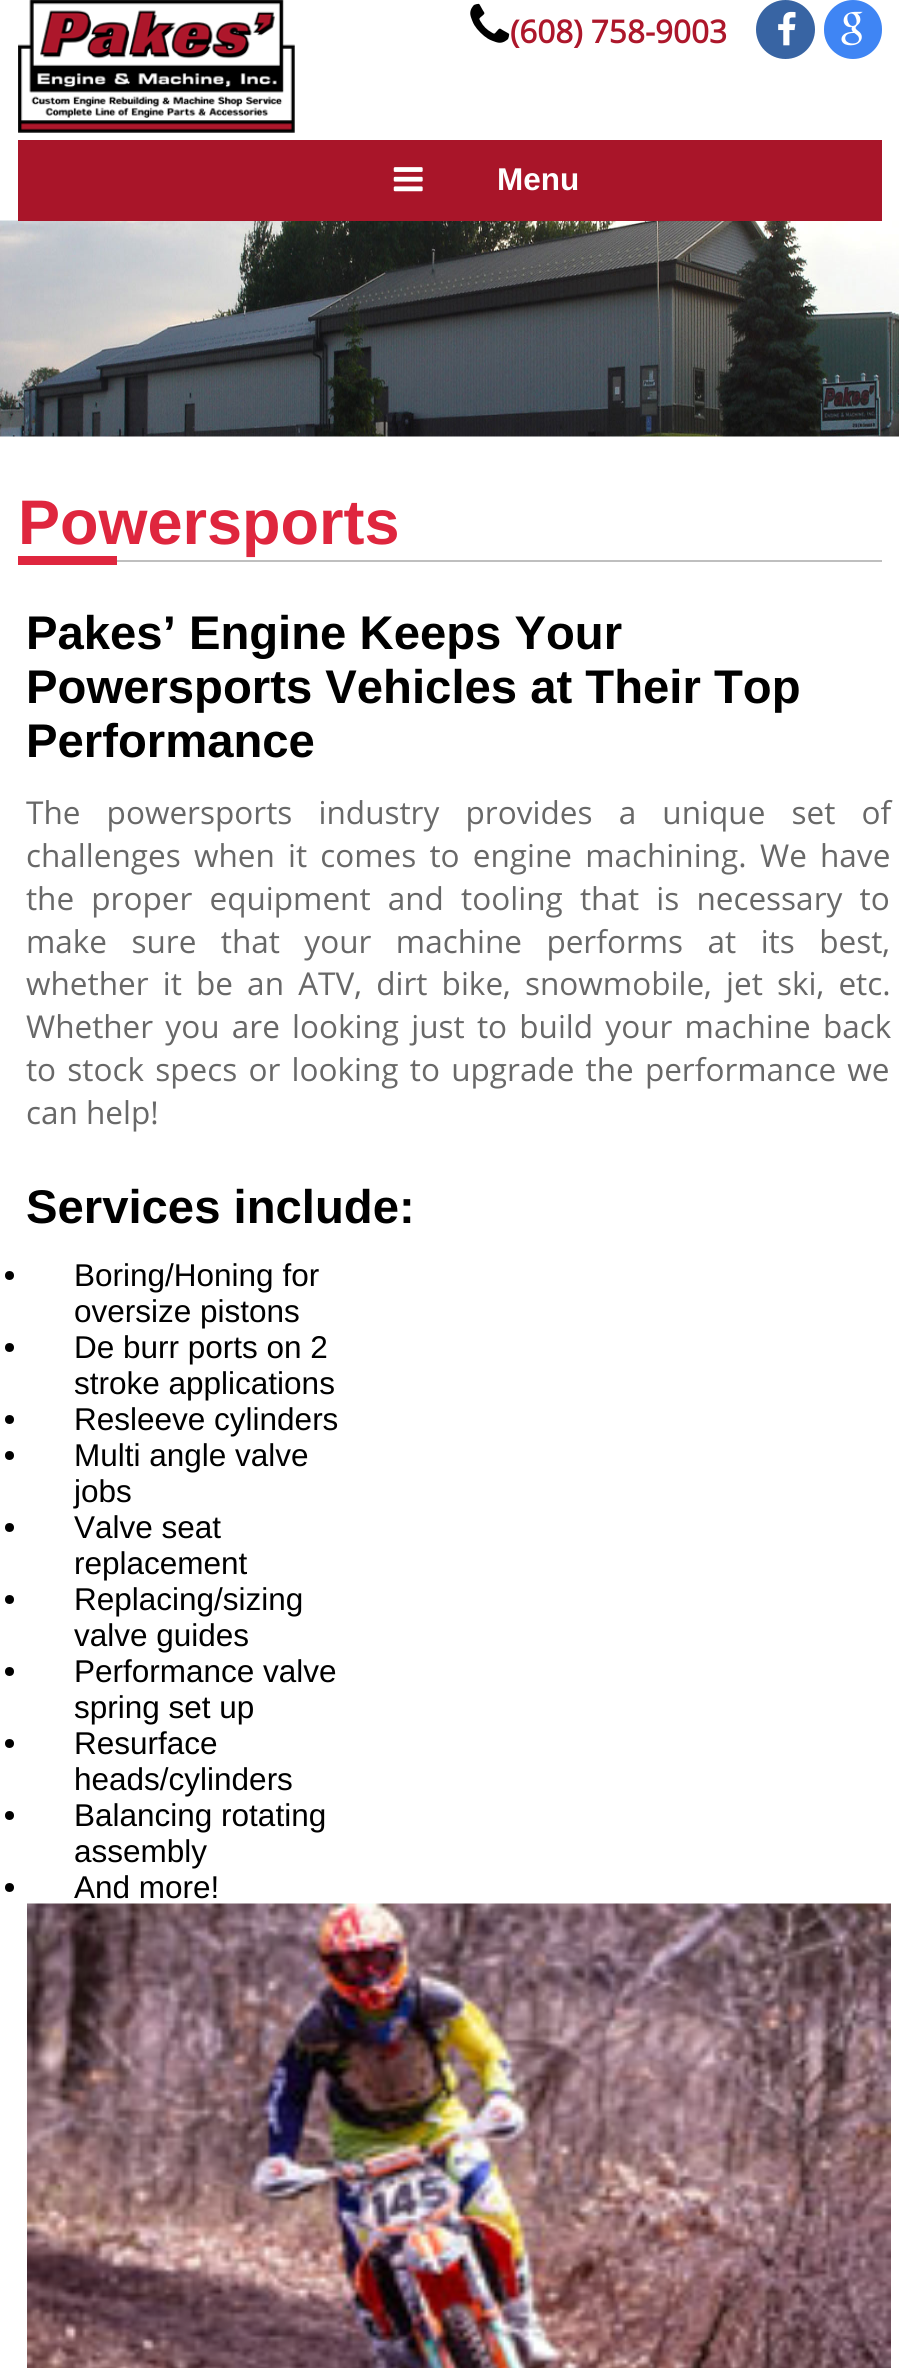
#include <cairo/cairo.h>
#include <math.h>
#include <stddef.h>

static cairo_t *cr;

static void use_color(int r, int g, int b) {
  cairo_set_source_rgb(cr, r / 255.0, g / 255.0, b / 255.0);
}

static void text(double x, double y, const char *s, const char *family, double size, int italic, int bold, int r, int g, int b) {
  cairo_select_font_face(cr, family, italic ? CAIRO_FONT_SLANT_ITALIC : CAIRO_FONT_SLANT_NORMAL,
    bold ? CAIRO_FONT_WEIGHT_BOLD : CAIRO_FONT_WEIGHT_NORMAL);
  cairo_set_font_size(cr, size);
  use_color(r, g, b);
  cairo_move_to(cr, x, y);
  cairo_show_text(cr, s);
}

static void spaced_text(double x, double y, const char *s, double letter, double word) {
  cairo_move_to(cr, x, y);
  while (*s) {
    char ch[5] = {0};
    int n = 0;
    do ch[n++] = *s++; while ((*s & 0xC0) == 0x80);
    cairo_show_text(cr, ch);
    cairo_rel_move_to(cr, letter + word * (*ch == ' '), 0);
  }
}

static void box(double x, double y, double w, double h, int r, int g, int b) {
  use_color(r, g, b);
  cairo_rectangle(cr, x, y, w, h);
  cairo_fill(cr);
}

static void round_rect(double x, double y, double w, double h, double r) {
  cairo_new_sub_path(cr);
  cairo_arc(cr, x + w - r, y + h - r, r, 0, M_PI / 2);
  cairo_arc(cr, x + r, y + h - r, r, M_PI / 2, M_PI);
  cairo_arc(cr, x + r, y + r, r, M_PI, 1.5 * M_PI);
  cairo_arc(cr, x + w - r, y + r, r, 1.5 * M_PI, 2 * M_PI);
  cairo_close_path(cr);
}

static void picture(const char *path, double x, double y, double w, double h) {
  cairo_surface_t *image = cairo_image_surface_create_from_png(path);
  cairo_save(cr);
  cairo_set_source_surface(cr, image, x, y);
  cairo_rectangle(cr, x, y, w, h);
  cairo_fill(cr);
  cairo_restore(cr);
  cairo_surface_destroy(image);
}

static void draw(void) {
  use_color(255, 255, 255);
  cairo_paint(cr);
  picture("img_01.png", 18, 0, 277, 133);
  picture("img_02.png", 470, 3, 40, 40);
  use_color(56, 100, 163);
  cairo_arc(cr, 785.5, 29.5, 29.5, 0, 2 * M_PI);
  cairo_fill(cr);
  picture("img_03.png", 778, 11, 18, 35);
  use_color(63, 133, 244);
  round_rect(824, 0, 58, 59, 29);
  cairo_fill(cr);
  picture("img_04.png", 841, 11, 22, 35);
  picture("img_06.png", 0, 220, 899, 217);
  box(18, 140, 864, 81, 169, 21, 41);
  picture("img_05.png", 393, 167, 30, 25);
  box(117, 560, 765, 2, 191, 191, 191);
  box(18, 556, 99, 9, 223, 38, 62);
  use_color(0, 0, 0);
  cairo_arc(cr, 9.5, 1275.5, 4.5, 0, 2 * M_PI);
  cairo_fill(cr);
  cairo_arc(cr, 9.5, 1347.5, 4.5, 0, 2 * M_PI);
  cairo_fill(cr);
  cairo_arc(cr, 9.5, 1419.5, 4.5, 0, 2 * M_PI);
  cairo_fill(cr);
  cairo_arc(cr, 9.5, 1455.5, 4.5, 0, 2 * M_PI);
  cairo_fill(cr);
  cairo_arc(cr, 9.5, 1527.5, 4.5, 0, 2 * M_PI);
  cairo_fill(cr);
  cairo_arc(cr, 9.5, 1599.5, 4.5, 0, 2 * M_PI);
  cairo_fill(cr);
  cairo_arc(cr, 9.5, 1671.5, 4.5, 0, 2 * M_PI);
  cairo_fill(cr);
  cairo_arc(cr, 9.5, 1743.5, 4.5, 0, 2 * M_PI);
  cairo_fill(cr);
  cairo_arc(cr, 9.5, 1815.5, 4.5, 0, 2 * M_PI);
  cairo_fill(cr);
  cairo_arc(cr, 9.5, 1887.5, 4.5, 0, 2 * M_PI);
  cairo_fill(cr);
  picture("img_07.png", 27, 1903, 864, 465);
  text(510, 43, "(608) 758-9003", "Open Sans", 31.5, 0, 1, 173, 23, 43);
  text(497, 190, "Menu", "Liberation Sans", 31.5, 0, 1, 255, 255, 255);
  text(18, 544, "Powersports", "Liberation Sans", 63, 0, 1, 223, 38, 62);
  text(26, 649, "Pakes’ Engine Keeps Your", "Liberation Sans", 47.25, 0, 1, 0, 0, 0);
  text(26, 703, "Powersports Vehicles at Their Top", "Liberation Sans", 47.25, 0, 1, 0, 0, 0);
  text(26, 757, "Performance", "Liberation Sans", 47.25, 0, 1, 0, 0, 0);
  cairo_select_font_face(cr, "Open Sans", CAIRO_FONT_SLANT_NORMAL, CAIRO_FONT_WEIGHT_NORMAL);
  cairo_set_font_size(cr, 31.5);
  use_color(104, 104, 104);
  spaced_text(26, 824, "The powersports industry provides a unique set of", 0, 18);
  spaced_text(26, 867, "challenges when it comes to engine machining.", 0, 5);
  spaced_text(760, 867, "We have", 0, 5);
  spaced_text(26, 910, "the proper equipment and tooling that is necessary to", 0, 9);
  spaced_text(26, 953, "make sure that your machine performs at its best,", 0, 16.25);
  spaced_text(26, 995, "whether it be an ATV, dirt bike, snowmobile, jet ski, etc.", 0, 6);
  spaced_text(26, 1038, "Whether you are looking just to build your machine back", 0, 4);
  spaced_text(26, 1081, "to stock specs or looking to upgrade the performance we", 0, 3);
  text(26, 1124, "can help!", "Open Sans", 31.5, 0, 0, 104, 104, 104);
  text(26, 1223, "Services include:", "Liberation Sans", 47.25, 0, 1, 0, 0, 0);
  text(74, 1286, "Boring/Honing for", "Liberation Sans", 31.5, 0, 0, 0, 0, 0);
  text(74, 1322, "oversize pistons", "Liberation Sans", 31.5, 0, 0, 0, 0, 0);
  text(74, 1358, "De burr ports on 2", "Liberation Sans", 31.5, 0, 0, 0, 0, 0);
  text(74, 1394, "stroke applications", "Liberation Sans", 31.5, 0, 0, 0, 0, 0);
  text(74, 1430, "Resleeve cylinders", "Liberation Sans", 31.5, 0, 0, 0, 0, 0);
  text(74, 1466, "Multi angle valve", "Liberation Sans", 31.5, 0, 0, 0, 0, 0);
  text(74, 1502, "jobs", "Liberation Sans", 31.5, 0, 0, 0, 0, 0);
  text(74, 1538, "Valve seat", "Liberation Sans", 31.5, 0, 0, 0, 0, 0);
  text(74, 1574, "replacement", "Liberation Sans", 31.5, 0, 0, 0, 0, 0);
  text(74, 1610, "Replacing/sizing", "Liberation Sans", 31.5, 0, 0, 0, 0, 0);
  text(74, 1646, "valve guides", "Liberation Sans", 31.5, 0, 0, 0, 0, 0);
  text(74, 1682, "Performance valve", "Liberation Sans", 31.5, 0, 0, 0, 0, 0);
  text(74, 1718, "spring set up", "Liberation Sans", 31.5, 0, 0, 0, 0, 0);
  text(74, 1754, "Resurface", "Liberation Sans", 31.5, 0, 0, 0, 0, 0);
  text(74, 1790, "heads/cylinders", "Liberation Sans", 31.5, 0, 0, 0, 0, 0);
  text(74, 1826, "Balancing rotating", "Liberation Sans", 31.5, 0, 0, 0, 0, 0);
  text(74, 1862, "assembly", "Liberation Sans", 31.5, 0, 0, 0, 0, 0);
  text(74, 1898, "And more!", "Liberation Sans", 31.5, 0, 0, 0, 0, 0);
}

int main(void) {
  cairo_surface_t *surface = cairo_image_surface_create(CAIRO_FORMAT_RGB24, 899, 2368);
  cr = cairo_create(surface);
  cairo_font_options_t *options = cairo_font_options_create();
  cairo_font_options_set_hint_metrics(options, CAIRO_HINT_METRICS_OFF);
  cairo_font_options_set_hint_style(options, CAIRO_HINT_STYLE_NONE);
  cairo_set_font_options(cr, options);
  cairo_set_miter_limit(cr, 4);
  draw();
  cairo_surface_write_to_png(surface, "out.png");
  cairo_font_options_destroy(options);
  cairo_destroy(cr);
  cairo_surface_destroy(surface);
  return 0;
}
